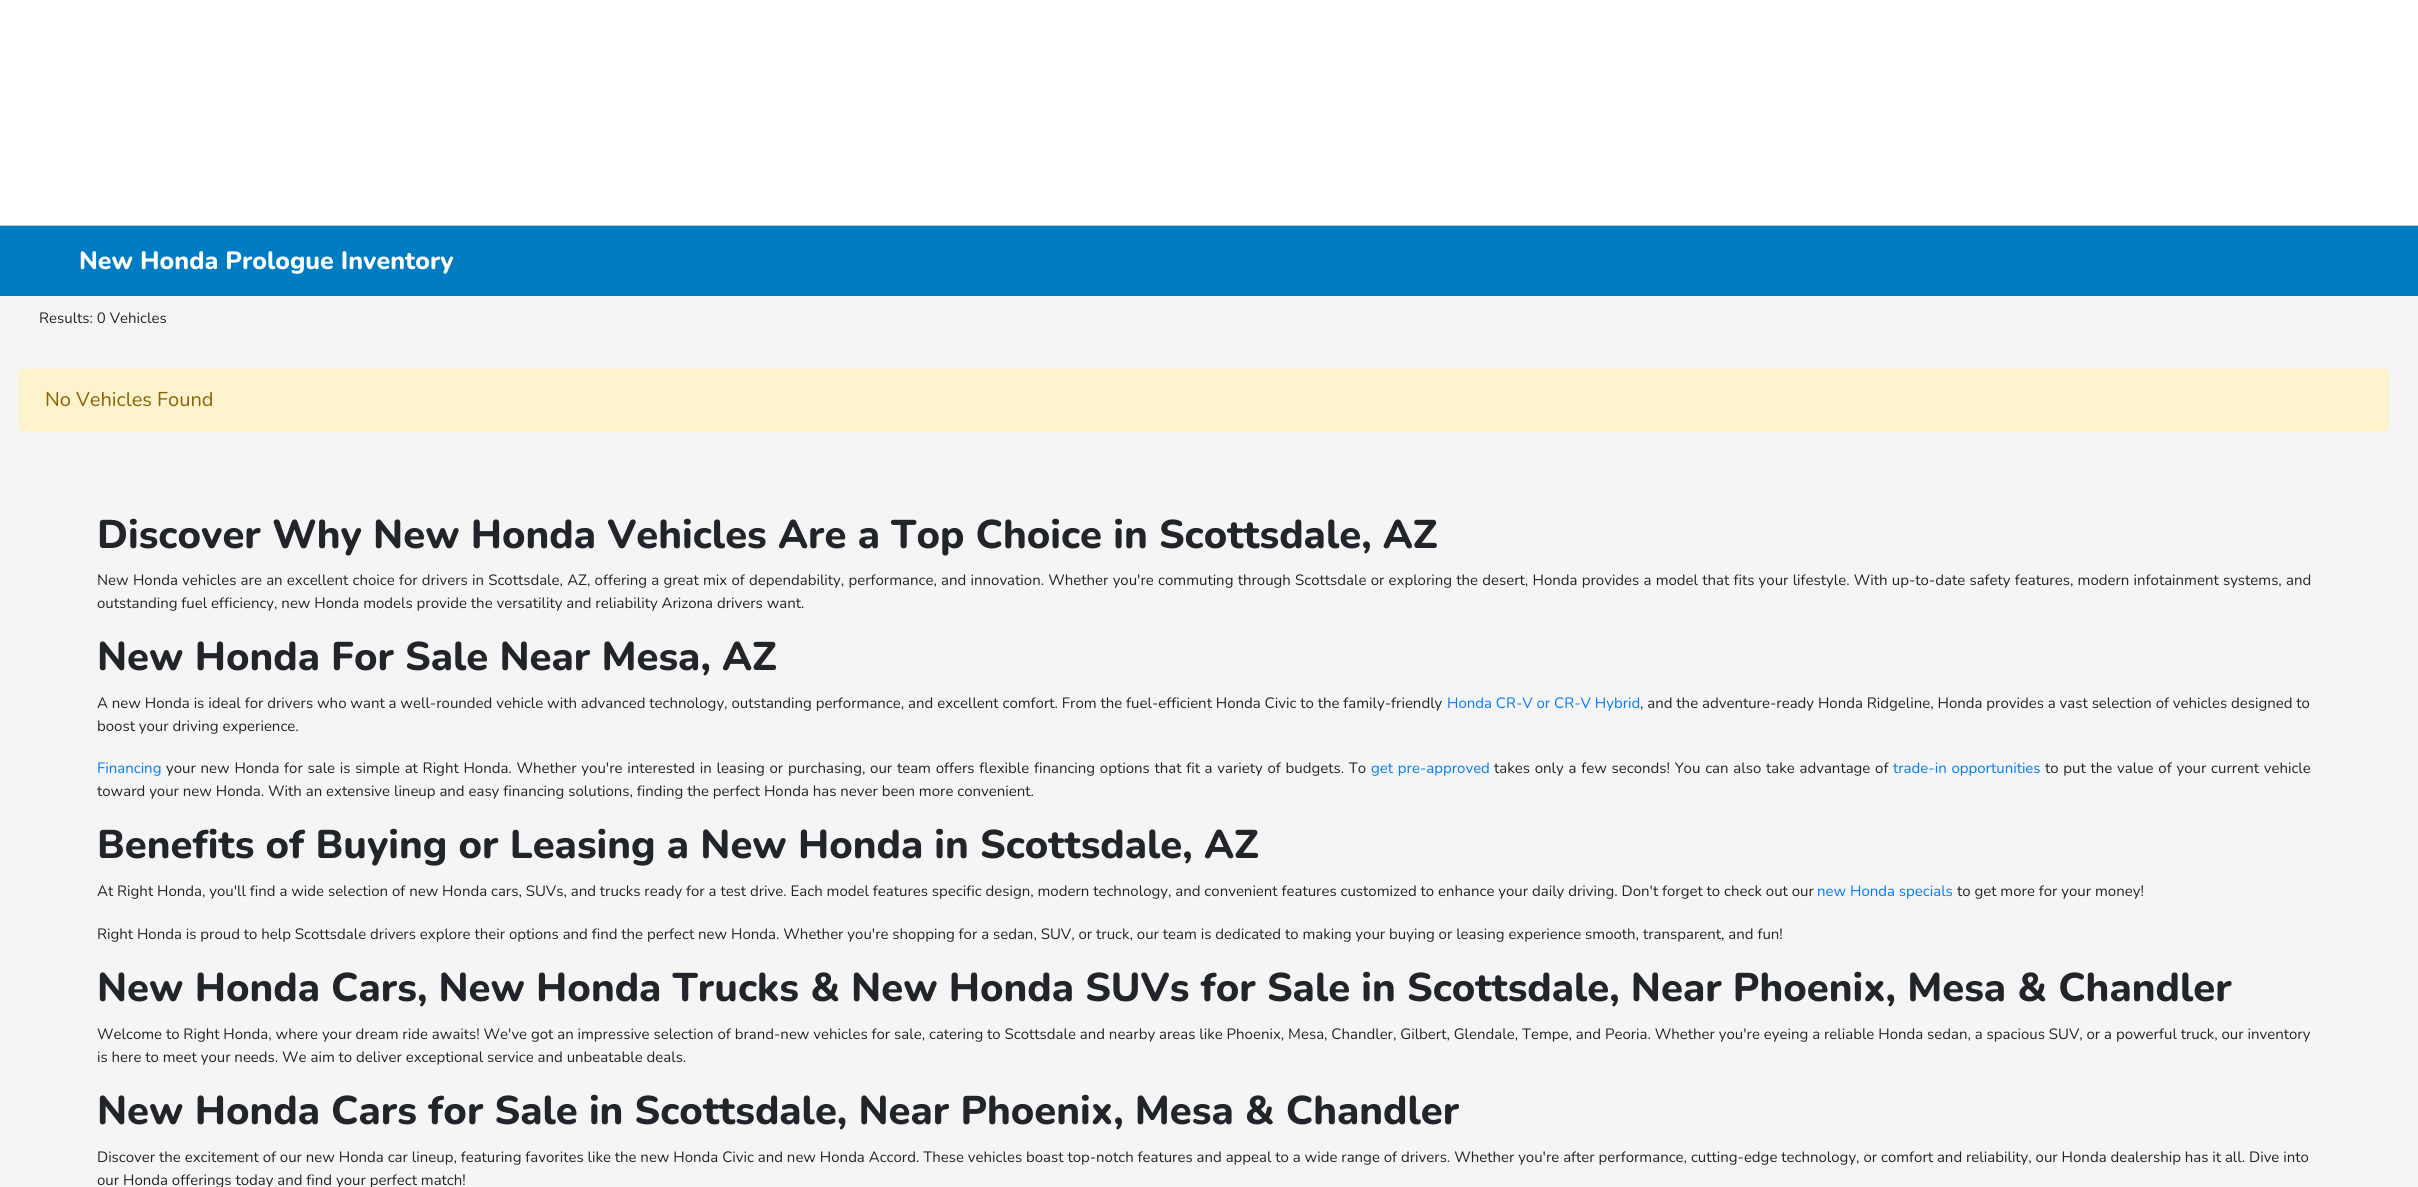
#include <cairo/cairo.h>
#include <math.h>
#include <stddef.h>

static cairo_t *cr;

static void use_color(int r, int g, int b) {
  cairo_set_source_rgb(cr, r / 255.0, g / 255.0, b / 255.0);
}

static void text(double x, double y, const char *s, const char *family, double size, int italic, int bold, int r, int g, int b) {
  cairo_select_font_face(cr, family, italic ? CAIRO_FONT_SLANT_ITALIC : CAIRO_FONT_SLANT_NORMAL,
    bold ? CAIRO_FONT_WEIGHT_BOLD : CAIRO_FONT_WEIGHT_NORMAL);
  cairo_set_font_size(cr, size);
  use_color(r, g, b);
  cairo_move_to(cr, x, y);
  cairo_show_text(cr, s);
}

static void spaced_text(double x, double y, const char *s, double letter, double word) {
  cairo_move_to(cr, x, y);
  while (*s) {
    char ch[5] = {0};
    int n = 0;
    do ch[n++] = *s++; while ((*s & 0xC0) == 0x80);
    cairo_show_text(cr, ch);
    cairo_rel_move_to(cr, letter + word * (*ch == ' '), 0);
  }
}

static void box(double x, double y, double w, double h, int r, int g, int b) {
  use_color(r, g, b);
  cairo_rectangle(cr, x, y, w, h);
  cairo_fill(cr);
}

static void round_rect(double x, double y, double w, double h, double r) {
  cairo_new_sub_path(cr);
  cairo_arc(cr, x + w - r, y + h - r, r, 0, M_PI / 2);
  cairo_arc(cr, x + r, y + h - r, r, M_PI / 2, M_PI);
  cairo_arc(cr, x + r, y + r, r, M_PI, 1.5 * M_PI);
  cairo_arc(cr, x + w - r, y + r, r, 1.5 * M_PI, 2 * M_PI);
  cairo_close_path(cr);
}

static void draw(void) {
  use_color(255, 255, 255);
  cairo_paint(cr);
  box(0, 296, 2418, 891, 245, 245, 245);
  box(0, 226, 2418, 70, 0, 124, 195);
  box(0, 225, 2418, 1, 198, 198, 198);
  use_color(255, 243, 205);
  round_rect(19.5, 369.5, 2369, 61, 4.5);
  cairo_fill_preserve(cr);
  use_color(255, 238, 186);
  cairo_set_line_width(cr, 1);
  cairo_stroke(cr);
  text(79, 269, "New Honda Prologue Inventory", "Nunito ExtraBold", 25, 0, 0, 255, 255, 255);
  text(39, 323, "Results: 0 Vehicles", "Nunito", 15, 0, 0, 33, 37, 41);
  text(45, 406, "No Vehicles Found", "Nunito", 20, 0, 0, 133, 100, 4);
  text(97, 548, "Discover Why New Honda Vehicles Are a Top Choice in Scottsdale, AZ", "Nunito ExtraBold", 40, 0, 0, 33, 37, 41);
  cairo_select_font_face(cr, "Nunito", CAIRO_FONT_SLANT_NORMAL, CAIRO_FONT_WEIGHT_NORMAL);
  cairo_set_font_size(cr, 15);
  spaced_text(97, 585, "New Honda vehicles are an excellent choice for drivers in Scottsdale, AZ, offering a great mix of dependability, performance, and innovation. Whether you're commuting through Scottsdale or exploring the desert, Honda provides a model that fits your lifestyle. With up-to-date safety features, modern infotainment systems, and", 0, 0.35);
  text(97, 608, "outstanding fuel efficiency, new Honda models provide the versatility and reliability Arizona drivers want.", "Nunito", 15, 0, 0, 33, 37, 41);
  text(97, 670, "New Honda For Sale Near Mesa, AZ", "Nunito ExtraBold", 40, 0, 0, 33, 37, 41);
  text(97, 708, "A new Honda is ideal for drivers who want a well-rounded vehicle with advanced technology, outstanding performance, and excellent comfort. From the fuel-efficient Honda Civic to the family-friendly", "Nunito", 15, 0, 0, 33, 37, 41);
  text(1447, 708, "Honda CR-V or CR-V Hybrid", "Nunito", 15, 0, 0, 0, 123, 255);
  text(1640, 708, ", and the adventure-ready Honda Ridgeline, Honda provides a vast selection of vehicles designed to", "Nunito", 15, 0, 0, 33, 37, 41);
  text(97, 731, "boost your driving experience.", "Nunito", 15, 0, 0, 33, 37, 41);
  text(97, 773, "Financing", "Nunito", 15, 0, 0, 0, 123, 255);
  use_color(33, 37, 41);
  spaced_text(166, 773, "your new Honda for sale is simple at Right Honda. Whether you're interested in leasing or purchasing, our team offers flexible financing options that fit a variety of budgets. To", 0, 0.85);
  use_color(0, 123, 255);
  spaced_text(1371, 773, "get pre-approved", 0, 0.9);
  use_color(33, 37, 41);
  spaced_text(1494, 773, "takes only a few seconds! You can also take advantage of", 0, 0.9);
  use_color(0, 123, 255);
  spaced_text(1893, 773, "trade-in opportunities", 0, 0.9);
  use_color(33, 37, 41);
  spaced_text(2045, 773, "to put the value of your current vehicle", 0, 0.9);
  text(97, 796, "toward your new Honda. With an extensive lineup and easy financing solutions, finding the perfect Honda has never been more convenient.", "Nunito", 15, 0, 0, 33, 37, 41);
  text(97, 858, "Benefits of Buying or Leasing a New Honda in Scottsdale, AZ", "Nunito ExtraBold", 40, 0, 0, 33, 37, 41);
  text(97, 896, "At Right Honda, you'll find a wide selection of new Honda cars, SUVs, and trucks ready for a test drive. Each model features specific design, modern technology, and convenient features customized to enhance your daily driving. Don't forget to check out our", "Nunito", 15, 0, 0, 33, 37, 41);
  text(1817, 896, "new Honda specials", "Nunito", 15, 0, 0, 0, 123, 255);
  text(1957, 896, "to get more for your money!", "Nunito", 15, 0, 0, 33, 37, 41);
  text(97, 939, "Right Honda is proud to help Scottsdale drivers explore their options and find the perfect new Honda. Whether you're shopping for a sedan, SUV, or truck, our team is dedicated to making your buying or leasing experience smooth, transparent, and fun!", "Nunito", 15, 0, 0, 33, 37, 41);
  text(97, 1001, "New Honda Cars, New Honda Trucks & New Honda SUVs for Sale in Scottsdale, Near Phoenix, Mesa & Chandler", "Nunito ExtraBold", 40, 0, 0, 33, 37, 41);
  text(97, 1039, "Welcome to Right Honda, where your dream ride awaits! We've got an impressive selection of brand-new vehicles for sale, catering to Scottsdale and nearby areas like Phoenix, Mesa, Chandler, Gilbert, Glendale, Tempe, and Peoria. Whether you're eyeing a reliable Honda sedan, a spacious SUV, or a powerful truck, our inventory", "Nunito", 15, 0, 0, 33, 37, 41);
  text(97, 1062, "is here to meet your needs. We aim to deliver exceptional service and unbeatable deals.", "Nunito", 15, 0, 0, 33, 37, 41);
  text(97, 1124, "New Honda Cars for Sale in Scottsdale, Near Phoenix, Mesa & Chandler", "Nunito ExtraBold", 40, 0, 0, 33, 37, 41);
  text(97, 1162, "Discover the excitement of our new Honda car lineup, featuring favorites like the new Honda Civic and new Honda Accord. These vehicles boast top-notch features and appeal to a wide range of drivers. Whether you're after performance, cutting-edge technology, or comfort and reliability, our Honda dealership has it all. Dive into", "Nunito", 15, 0, 0, 33, 37, 41);
  text(97, 1185, "our Honda offerings today and find your perfect match!", "Nunito", 15, 0, 0, 33, 37, 41);
}

int main(void) {
  cairo_surface_t *surface = cairo_image_surface_create(CAIRO_FORMAT_RGB24, 2418, 1187);
  cr = cairo_create(surface);
  cairo_font_options_t *options = cairo_font_options_create();
  cairo_font_options_set_hint_metrics(options, CAIRO_HINT_METRICS_OFF);
  cairo_font_options_set_hint_style(options, CAIRO_HINT_STYLE_NONE);
  cairo_set_font_options(cr, options);
  cairo_set_miter_limit(cr, 4);
  draw();
  cairo_surface_write_to_png(surface, "out.png");
  cairo_font_options_destroy(options);
  cairo_destroy(cr);
  cairo_surface_destroy(surface);
  return 0;
}
